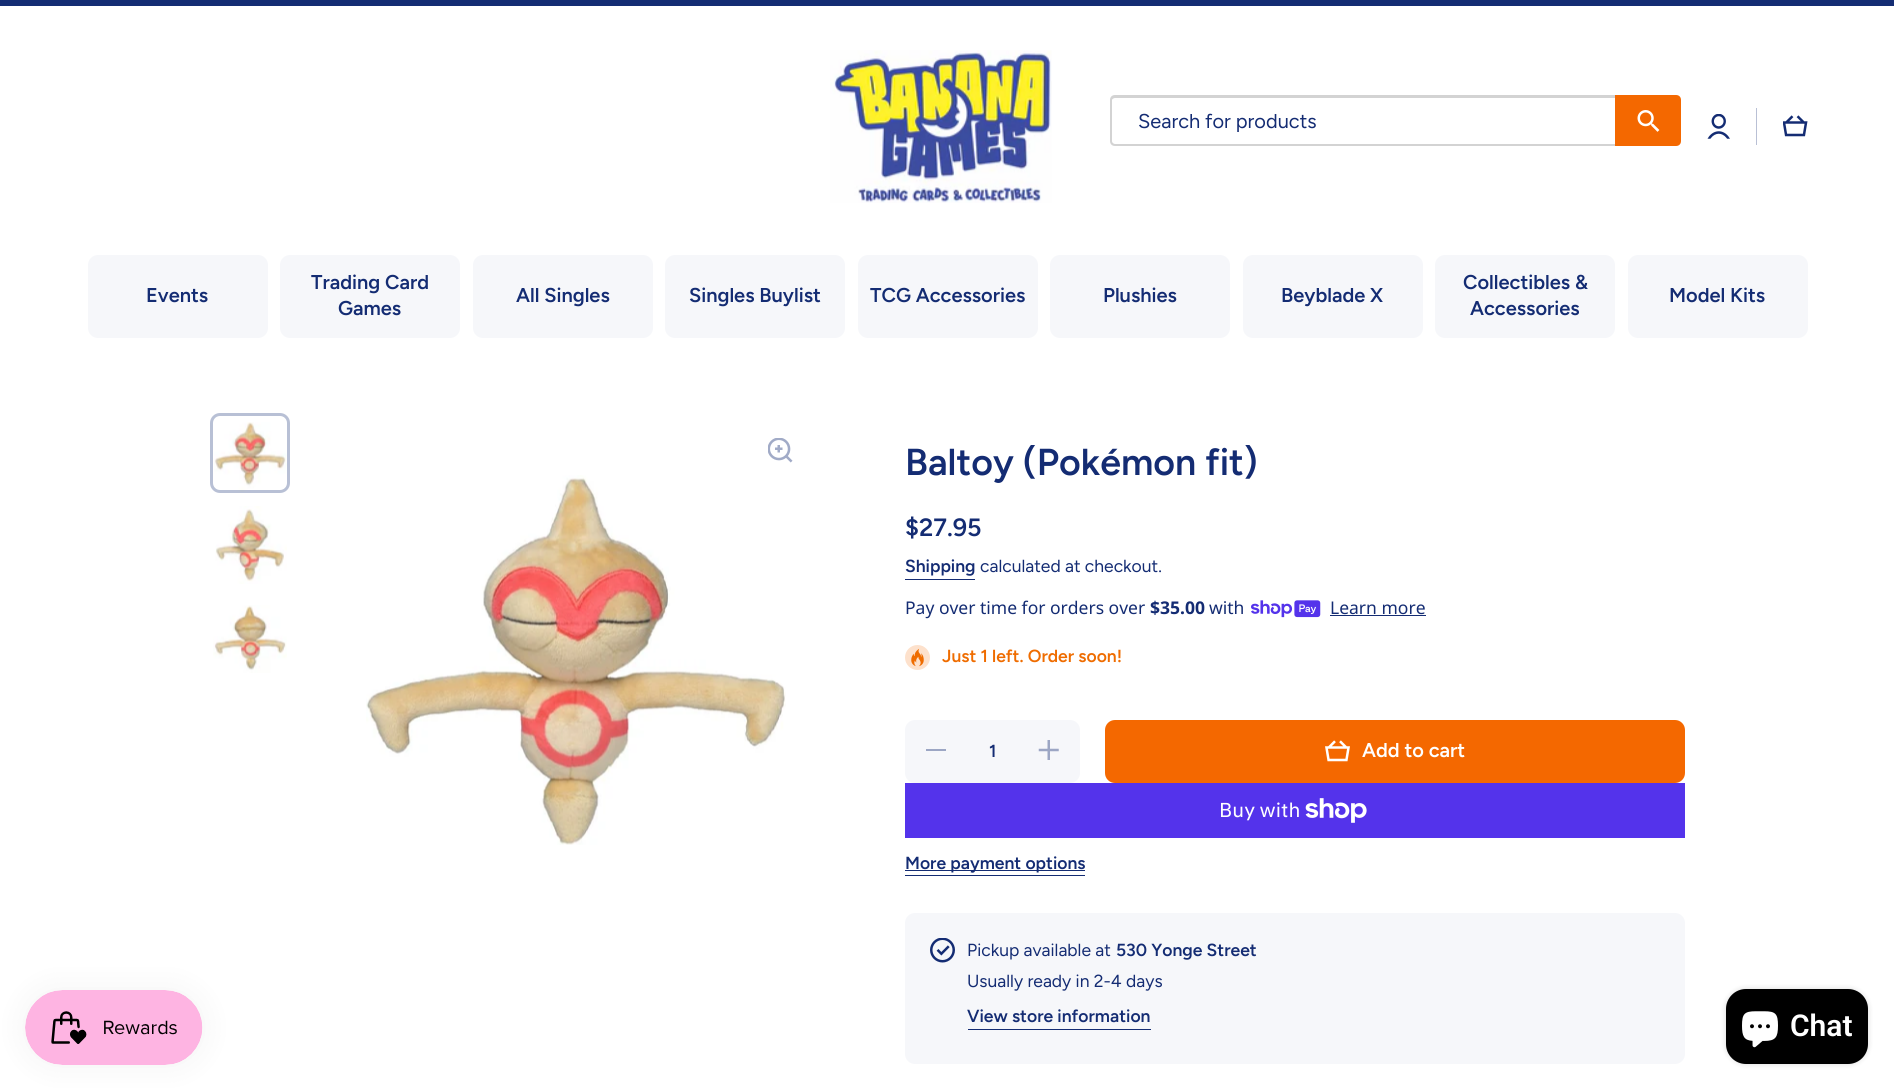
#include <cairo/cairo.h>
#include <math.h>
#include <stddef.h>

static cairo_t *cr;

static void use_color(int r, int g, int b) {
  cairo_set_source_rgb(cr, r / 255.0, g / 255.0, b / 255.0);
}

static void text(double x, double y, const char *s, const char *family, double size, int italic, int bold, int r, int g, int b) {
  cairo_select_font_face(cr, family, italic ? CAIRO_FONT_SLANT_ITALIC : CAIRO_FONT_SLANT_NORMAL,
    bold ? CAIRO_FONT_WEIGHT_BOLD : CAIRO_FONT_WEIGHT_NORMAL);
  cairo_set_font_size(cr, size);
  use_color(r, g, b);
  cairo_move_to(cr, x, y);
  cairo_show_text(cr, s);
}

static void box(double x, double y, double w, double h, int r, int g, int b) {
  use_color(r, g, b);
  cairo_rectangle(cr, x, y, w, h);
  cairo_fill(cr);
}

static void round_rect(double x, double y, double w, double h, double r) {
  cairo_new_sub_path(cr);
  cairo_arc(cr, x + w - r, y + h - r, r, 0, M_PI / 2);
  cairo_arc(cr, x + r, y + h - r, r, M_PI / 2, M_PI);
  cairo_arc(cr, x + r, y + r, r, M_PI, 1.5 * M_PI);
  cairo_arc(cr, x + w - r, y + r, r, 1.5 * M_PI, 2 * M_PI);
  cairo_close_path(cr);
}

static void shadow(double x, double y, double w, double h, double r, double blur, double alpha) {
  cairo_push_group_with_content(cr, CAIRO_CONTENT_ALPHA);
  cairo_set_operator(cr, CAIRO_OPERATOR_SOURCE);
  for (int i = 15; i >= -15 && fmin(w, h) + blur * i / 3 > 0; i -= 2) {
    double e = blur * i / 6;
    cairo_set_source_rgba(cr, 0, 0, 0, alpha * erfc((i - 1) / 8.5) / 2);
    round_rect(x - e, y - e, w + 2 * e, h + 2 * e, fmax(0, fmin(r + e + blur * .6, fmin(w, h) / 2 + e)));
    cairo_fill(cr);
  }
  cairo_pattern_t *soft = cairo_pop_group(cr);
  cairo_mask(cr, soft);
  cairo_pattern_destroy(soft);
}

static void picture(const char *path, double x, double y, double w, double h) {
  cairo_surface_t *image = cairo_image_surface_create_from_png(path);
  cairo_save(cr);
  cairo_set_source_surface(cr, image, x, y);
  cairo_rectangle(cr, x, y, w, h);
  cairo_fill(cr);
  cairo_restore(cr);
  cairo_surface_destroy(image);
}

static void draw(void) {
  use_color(255, 255, 255);
  cairo_paint(cr);
  box(0, 0, 1894, 6, 20, 44, 115);
  picture("img_01.png", 830, 50, 222, 153);
  use_color(211, 211, 211);
  cairo_set_fill_rule(cr, CAIRO_FILL_RULE_EVEN_ODD);
  cairo_new_path(cr);
  cairo_move_to(cr, 1115, 95);
  cairo_line_to(cr, 1615, 95);
  cairo_line_to(cr, 1615, 146);
  cairo_line_to(cr, 1115, 146);
  cairo_curve_to(cr, 1112, 146, 1110, 144, 1110, 141);
  cairo_line_to(cr, 1110, 100);
  cairo_curve_to(cr, 1110, 97, 1112, 95, 1115, 95);
  cairo_close_path(cr);
  cairo_move_to(cr, 1115, 98);
  cairo_line_to(cr, 1615, 98);
  cairo_line_to(cr, 1615, 144);
  cairo_line_to(cr, 1115, 144);
  cairo_curve_to(cr, 1114, 144, 1112, 143, 1112, 141);
  cairo_line_to(cr, 1112, 100);
  cairo_curve_to(cr, 1112, 99, 1114, 98, 1115, 98);
  cairo_close_path(cr);
  cairo_fill(cr);
  use_color(244, 104, 0);
  cairo_new_path(cr);
  cairo_move_to(cr, 1615, 95);
  cairo_line_to(cr, 1676, 95);
  cairo_curve_to(cr, 1679, 95, 1681, 97, 1681, 100);
  cairo_line_to(cr, 1681, 141);
  cairo_curve_to(cr, 1681, 144, 1679, 146, 1676, 146);
  cairo_line_to(cr, 1615, 146);
  cairo_close_path(cr);
  cairo_fill(cr);
  picture("img_02.png", 1637, 110, 23, 22);
  picture("img_03.png", 1707, 114, 23, 25);
  box(1756, 108, 1, 37, 185, 192, 213);
  picture("img_04.png", 1783, 115, 25, 22);
  use_color(246, 247, 250);
  round_rect(88, 255, 180, 83, 10);
  cairo_fill(cr);
  round_rect(280, 255, 180, 83, 10);
  cairo_fill(cr);
  round_rect(473, 255, 180, 83, 10);
  cairo_fill(cr);
  round_rect(665, 255, 180, 83, 10);
  cairo_fill(cr);
  round_rect(858, 255, 180, 83, 10);
  cairo_fill(cr);
  round_rect(1050, 255, 180, 83, 10);
  cairo_fill(cr);
  round_rect(1243, 255, 180, 83, 10);
  cairo_fill(cr);
  round_rect(1435, 255, 180, 83, 10);
  cairo_fill(cr);
  round_rect(1628, 255, 180, 83, 10);
  cairo_fill(cr);
  use_color(0, 0, 0);
  shadow(25, 990, 178, 75, 37.5, 15.5, 0.05);
  picture("img_05.png", 25, 990, 178, 75);
  picture("img_06.png", 214, 422, 73, 70);
  round_rect(211.5, 414.5, 77, 77, 8.5);
  cairo_set_source_rgba(cr, 0.078, 0.173, 0.451, 0.3);
  cairo_set_line_width(cr, 3);
  cairo_stroke(cr);
  picture("img_07.png", 215, 506, 72, 78);
  picture("img_08.png", 213, 605, 74, 68);
  picture("img_09.png", 768, 438, 25, 25);
  picture("img_10.png", 366, 475, 420, 370);
  box(905, 579, 70, 1, 20, 44, 115);
  picture("img_11.png", 1251, 600, 70, 18);
  box(1330, 615, 96, 1, 20, 44, 115);
  picture("img_12.png", 905, 645, 25, 25);
  use_color(246, 247, 250);
  round_rect(905, 720, 175, 63, 10);
  cairo_fill(cr);
  box(926, 749, 20, 2, 156, 166, 196);
  picture("img_13.png", 1038, 740, 21, 20);
  use_color(244, 104, 0);
  round_rect(1105, 720, 580, 63, 10);
  cairo_fill(cr);
  picture("img_14.png", 1325, 740, 25, 22);
  box(905, 783, 780, 55, 84, 51, 235);
  picture("img_15.png", 1305, 798, 62, 25);
  box(905, 870, 180, 1, 20, 44, 115);
  box(905, 875, 180, 1, 20, 44, 115);
  use_color(246, 247, 250);
  round_rect(905, 913, 780, 151, 10);
  cairo_fill(cr);
  picture("img_16.png", 930, 938, 25, 25);
  box(968, 1029, 183, 1, 20, 44, 115);
  use_color(0, 0, 0);
  shadow(1726, 989, 142, 75, 20, 3, 0.15);
  use_color(0, 0, 0);
  round_rect(1726, 989, 142, 75, 20);
  cairo_fill(cr);
  picture("img_17.png", 1742, 1011, 36, 37);
  text(1138, 128, "Search for products", "Figtree", 20, 0, 0, 20, 44, 115);
  text(146, 302, "Events", "Figtree SemiBold", 20, 0, 0, 20, 44, 115);
  text(311, 289, "Trading Card", "Figtree SemiBold", 20, 0, 0, 20, 44, 115);
  text(338, 315, "Games", "Figtree SemiBold", 20, 0, 0, 20, 44, 115);
  text(516, 302, "All Singles", "Figtree SemiBold", 20, 0, 0, 20, 44, 115);
  text(689, 302, "Singles Buylist", "Figtree SemiBold", 20, 0, 0, 20, 44, 115);
  text(870, 302, "TCG Accessories", "Figtree SemiBold", 20, 0, 0, 20, 44, 115);
  text(1103, 302, "Plushies", "Figtree SemiBold", 20, 0, 0, 20, 44, 115);
  text(1281, 302, "Beyblade X", "Figtree SemiBold", 20, 0, 0, 20, 44, 115);
  text(1463, 289, "Collectibles &", "Figtree SemiBold", 20, 0, 0, 20, 44, 115);
  text(1470, 315, "Accessories", "Figtree SemiBold", 20, 0, 0, 20, 44, 115);
  text(1669, 302, "Model Kits", "Figtree SemiBold", 20, 0, 0, 20, 44, 115);
  text(905, 475, "Baltoy (Pokémon fit)", "Figtree SemiBold", 37.5, 0, 0, 20, 44, 115);
  text(905, 536, "$27.95", "Figtree SemiBold", 25, 0, 0, 20, 44, 115);
  text(905, 572, "Shipping", "Figtree SemiBold", 17.5, 0, 0, 20, 44, 115);
  text(980, 572, "calculated at checkout.", "Figtree", 17.5, 0, 0, 20, 44, 115);
  text(905, 614, "Pay over time for orders over", "Noto Sans", 17.5, 0, 0, 20, 44, 115);
  text(1150, 614, "$35.00", "Noto Sans", 17.5, 0, 1, 20, 44, 115);
  text(1209, 614, "with", "Noto Sans", 17.5, 0, 0, 20, 44, 115);
  text(1330, 614, "Learn more", "Noto Sans", 17.5, 0, 0, 20, 44, 115);
  text(942, 662, "Just 1 left. Order soon!", "Figtree SemiBold", 17.5, 0, 0, 239, 108, 0);
  text(989, 757, "1", "Figtree SemiBold", 17.5, 0, 0, 20, 44, 115);
  text(1362, 757, "Add to cart", "Figtree SemiBold", 20, 0, 0, 255, 255, 255);
  text(1219, 817, "Buy with", "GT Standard", 20, 0, 0, 255, 255, 255);
  text(905, 869, "More payment options", "Figtree SemiBold", 17.5, 0, 0, 20, 44, 115);
  text(967, 956, "Pickup available at", "Figtree", 17.5, 0, 0, 20, 44, 115);
  text(1116, 956, "530 Yonge Street", "Figtree SemiBold", 17.5, 0, 0, 20, 44, 115);
  text(967, 987, "Usually ready in 2-4 days", "Figtree", 17.5, 0, 0, 20, 44, 115);
  text(967, 1022, "View store information", "Figtree SemiBold", 17.5, 0, 0, 20, 44, 115);
  text(1790, 1036, "Chat", "Roboto SemiBold", 30, 0, 0, 255, 255, 255);
}

int main(void) {
  cairo_surface_t *surface = cairo_image_surface_create(CAIRO_FORMAT_RGB24, 1894, 1089);
  cr = cairo_create(surface);
  cairo_font_options_t *options = cairo_font_options_create();
  cairo_font_options_set_hint_metrics(options, CAIRO_HINT_METRICS_OFF);
  cairo_font_options_set_hint_style(options, CAIRO_HINT_STYLE_NONE);
  cairo_set_font_options(cr, options);
  cairo_set_miter_limit(cr, 4);
  draw();
  cairo_surface_write_to_png(surface, "out.png");
  cairo_font_options_destroy(options);
  cairo_destroy(cr);
  cairo_surface_destroy(surface);
  return 0;
}
